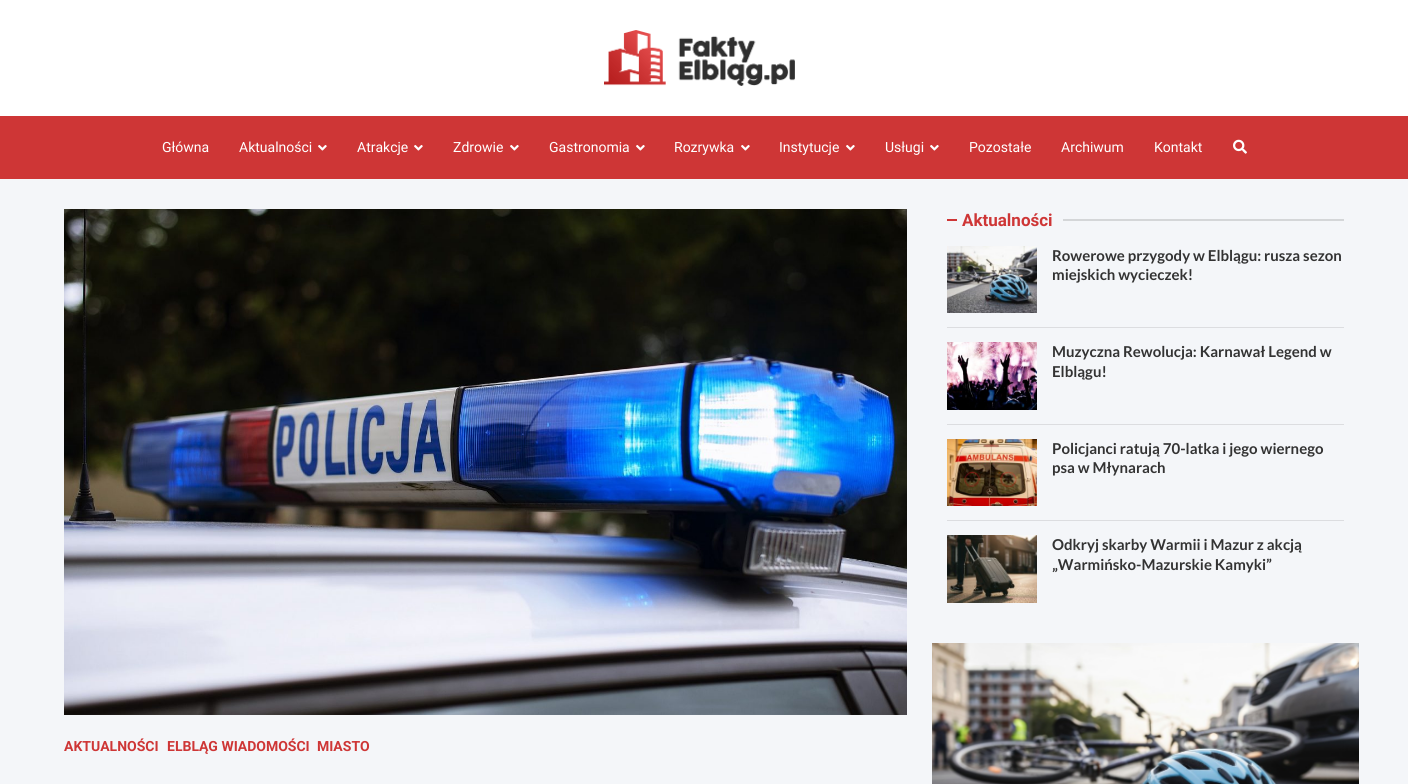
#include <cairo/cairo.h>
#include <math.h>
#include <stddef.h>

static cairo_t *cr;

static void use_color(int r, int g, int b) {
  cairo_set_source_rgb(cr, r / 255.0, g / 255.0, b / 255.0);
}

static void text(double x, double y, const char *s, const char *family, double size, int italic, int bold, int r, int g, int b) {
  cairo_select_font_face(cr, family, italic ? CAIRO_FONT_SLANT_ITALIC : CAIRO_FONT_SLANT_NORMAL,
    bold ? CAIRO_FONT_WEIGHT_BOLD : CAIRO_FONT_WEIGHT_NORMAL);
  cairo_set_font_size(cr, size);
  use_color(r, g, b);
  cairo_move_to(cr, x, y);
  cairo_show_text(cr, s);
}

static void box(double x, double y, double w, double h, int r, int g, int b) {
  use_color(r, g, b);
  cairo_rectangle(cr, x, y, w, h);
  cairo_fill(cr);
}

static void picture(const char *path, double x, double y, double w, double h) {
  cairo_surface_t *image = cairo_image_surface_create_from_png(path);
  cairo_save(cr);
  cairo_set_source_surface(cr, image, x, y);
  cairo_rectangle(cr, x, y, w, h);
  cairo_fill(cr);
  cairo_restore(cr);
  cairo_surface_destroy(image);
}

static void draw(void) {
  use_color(244, 246, 249);
  cairo_paint(cr);
  box(0, 0, 1408, 116, 255, 255, 255);
  picture("img_01.png", 604, 30, 191, 56);
  box(0, 116, 1408, 63, 206, 54, 54);
  picture("img_02.png", 318, 145, 9, 6);
  picture("img_02.png", 414, 145, 9, 6);
  picture("img_02.png", 510, 145, 9, 6);
  picture("img_02.png", 636, 145, 9, 6);
  picture("img_02.png", 741, 145, 9, 6);
  picture("img_02.png", 846, 145, 9, 6);
  picture("img_02.png", 930, 145, 9, 6);
  picture("img_03.png", 1233, 139, 14, 15);
  box(947, 219, 10, 2, 206, 54, 54);
  box(1063, 219, 281, 2, 212, 214, 216);
  picture("img_04.png", 947, 246, 90, 67);
  box(947, 327, 397, 1, 220, 221, 224);
  picture("img_05.png", 947, 342, 90, 68);
  box(947, 424, 397, 1, 220, 221, 224);
  picture("img_06.png", 947, 439, 90, 67);
  box(947, 520, 397, 1, 220, 221, 224);
  picture("img_07.png", 947, 535, 90, 68);
  picture("img_08.png", 932, 643, 427, 141);
  picture("img_09.png", 64, 209, 843, 506);
  text(162, 152, "Główna", "Roboto", 14, 0, 0, 255, 255, 255);
  text(239, 152, "Aktualności", "Roboto", 14, 0, 0, 255, 255, 255);
  text(357, 152, "Atrakcje", "Roboto", 14, 0, 0, 255, 255, 255);
  text(453, 152, "Zdrowie", "Roboto", 14, 0, 0, 255, 255, 255);
  text(549, 152, "Gastronomia", "Roboto", 14, 0, 0, 255, 255, 255);
  text(674, 152, "Rozrywka", "Roboto", 14, 0, 0, 255, 255, 255);
  text(779, 152, "Instytucje", "Roboto", 14, 0, 0, 255, 255, 255);
  text(885, 152, "Usługi", "Roboto", 14, 0, 0, 255, 255, 255);
  text(969, 152, "Pozostałe", "Roboto", 14, 0, 0, 255, 255, 255);
  text(1061, 152, "Archiwum", "Roboto", 14, 0, 0, 255, 255, 255);
  text(1154, 152, "Kontakt", "Roboto", 14, 0, 0, 255, 255, 255);
  text(962, 226, "Aktualności", "Roboto", 17, 0, 1, 206, 54, 54);
  text(1052, 261, "Rowerowe przygody w Elblągu: rusza sezon", "Lato", 15, 0, 1, 51, 51, 51);
  text(1052, 280, "miejskich wycieczek!", "Lato", 15, 0, 1, 51, 51, 51);
  text(1052, 357, "Muzyczna Rewolucja: Karnawał Legend w", "Lato", 15, 0, 1, 51, 51, 51);
  text(1052, 377, "Elblągu!", "Lato", 15, 0, 1, 51, 51, 51);
  text(1052, 454, "Policjanci ratują 70-latka i jego wiernego", "Lato", 15, 0, 1, 51, 51, 51);
  text(1052, 473, "psa w Młynarach", "Lato", 15, 0, 1, 51, 51, 51);
  text(1052, 550, "Odkryj skarby Warmii i Mazur z akcją", "Lato", 15, 0, 1, 51, 51, 51);
  text(1052, 570, "„Warmińsko-Mazurskie Kamyki”", "Lato", 15, 0, 1, 51, 51, 51);
  text(64, 751, "AKTUALNOŚCI", "Roboto", 14, 0, 1, 206, 54, 54);
  text(167, 751, "ELBLĄG WIADOMOŚCI", "Roboto", 14, 0, 1, 206, 54, 54);
  text(317, 751, "MIASTO", "Roboto", 14, 0, 1, 206, 54, 54);
}

int main(void) {
  cairo_surface_t *surface = cairo_image_surface_create(CAIRO_FORMAT_RGB24, 1408, 784);
  cr = cairo_create(surface);
  cairo_font_options_t *options = cairo_font_options_create();
  cairo_font_options_set_hint_metrics(options, CAIRO_HINT_METRICS_OFF);
  cairo_font_options_set_hint_style(options, CAIRO_HINT_STYLE_NONE);
  cairo_set_font_options(cr, options);
  cairo_set_miter_limit(cr, 4);
  draw();
  cairo_surface_write_to_png(surface, "out.png");
  cairo_font_options_destroy(options);
  cairo_destroy(cr);
  cairo_surface_destroy(surface);
  return 0;
}
